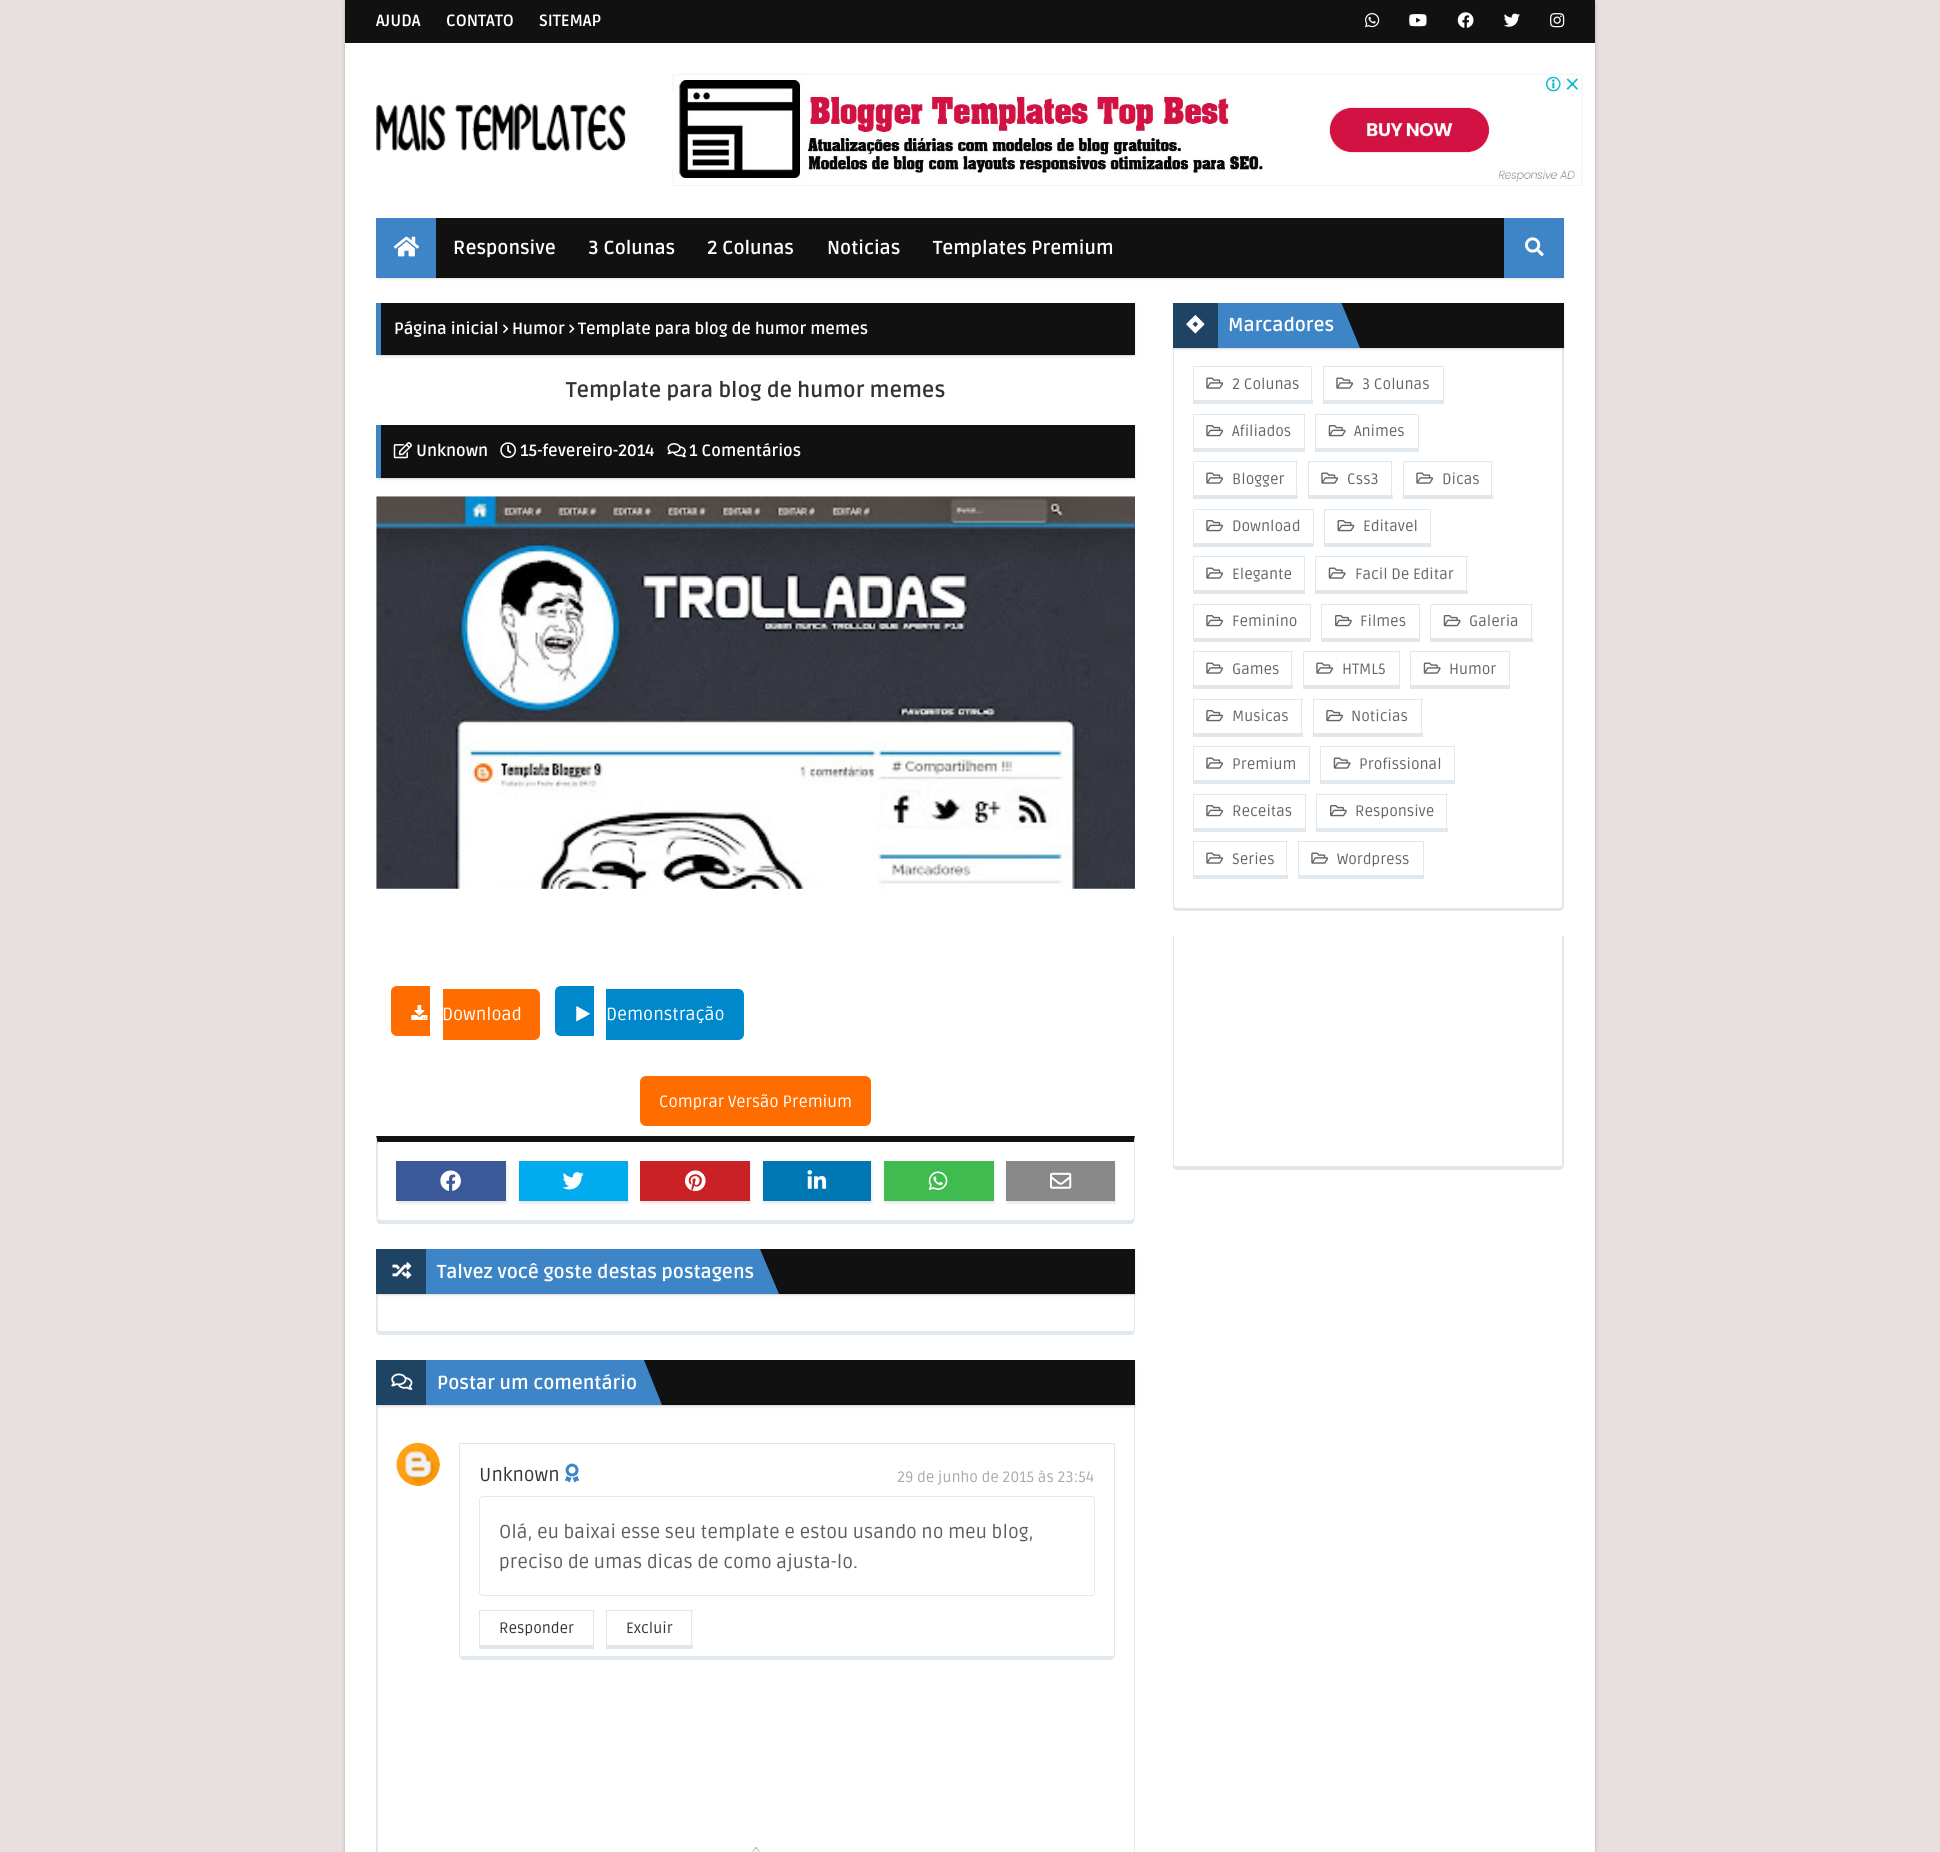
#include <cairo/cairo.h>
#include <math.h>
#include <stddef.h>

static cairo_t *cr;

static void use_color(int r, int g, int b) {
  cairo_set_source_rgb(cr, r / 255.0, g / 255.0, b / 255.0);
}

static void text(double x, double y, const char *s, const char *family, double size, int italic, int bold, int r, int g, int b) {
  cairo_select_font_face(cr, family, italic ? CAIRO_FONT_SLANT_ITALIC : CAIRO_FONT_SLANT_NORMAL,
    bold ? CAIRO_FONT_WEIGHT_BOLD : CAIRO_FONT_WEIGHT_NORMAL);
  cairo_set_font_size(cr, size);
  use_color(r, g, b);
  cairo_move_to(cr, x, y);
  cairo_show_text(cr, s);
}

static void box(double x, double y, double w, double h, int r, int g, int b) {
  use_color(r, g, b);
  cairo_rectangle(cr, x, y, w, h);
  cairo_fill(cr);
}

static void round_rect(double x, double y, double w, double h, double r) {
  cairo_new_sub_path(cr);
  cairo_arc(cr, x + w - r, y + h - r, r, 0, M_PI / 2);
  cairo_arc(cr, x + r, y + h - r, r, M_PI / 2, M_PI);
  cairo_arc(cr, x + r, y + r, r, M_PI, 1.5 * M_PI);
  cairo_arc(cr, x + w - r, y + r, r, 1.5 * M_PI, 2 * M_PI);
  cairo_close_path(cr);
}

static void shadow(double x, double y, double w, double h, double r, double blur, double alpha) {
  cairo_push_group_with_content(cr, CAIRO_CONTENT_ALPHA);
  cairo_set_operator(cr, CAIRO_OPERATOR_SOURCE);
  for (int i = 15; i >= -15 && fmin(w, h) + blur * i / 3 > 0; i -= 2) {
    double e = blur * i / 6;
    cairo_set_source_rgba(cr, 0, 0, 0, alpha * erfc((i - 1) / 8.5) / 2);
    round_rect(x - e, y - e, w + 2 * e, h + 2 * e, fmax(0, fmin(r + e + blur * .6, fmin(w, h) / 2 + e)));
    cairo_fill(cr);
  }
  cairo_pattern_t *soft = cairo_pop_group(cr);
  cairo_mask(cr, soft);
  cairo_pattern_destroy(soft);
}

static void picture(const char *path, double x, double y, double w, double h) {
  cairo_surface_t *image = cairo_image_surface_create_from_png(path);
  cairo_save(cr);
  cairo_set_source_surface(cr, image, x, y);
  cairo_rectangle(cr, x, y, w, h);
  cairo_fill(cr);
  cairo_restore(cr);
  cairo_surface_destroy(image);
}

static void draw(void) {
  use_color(231, 224, 222);
  cairo_paint(cr);
  use_color(0, 0, 0);
  shadow(345, 1, 1250, 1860, 0, 3, 0.12);
  shadow(345, 3, 1250, 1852, 0, 1, 0.14);
  box(345, 43, 1250, 1809, 255, 255, 255);
  box(345, 0, 1250, 43, 17, 17, 17);
  picture("img_01.png", 1365, 13, 15, 15);
  picture("img_02.png", 1409, 14, 18, 13);
  picture("img_03.png", 1457, 12, 17, 16);
  picture("img_04.png", 1504, 13, 16, 14);
  picture("img_05.png", 1550, 13, 15, 15);
  picture("img_06.png", 376, 103, 250, 49);
  picture("img_07.png", 672, 73, 911, 113);
  box(436, 218, 1068, 60, 17, 17, 17);
  cairo_save(cr);
  cairo_set_fill_rule(cr, CAIRO_FILL_RULE_EVEN_ODD);
  cairo_new_path(cr);
  cairo_move_to(cr, 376, 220);
  cairo_line_to(cr, 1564, 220);
  cairo_line_to(cr, 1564, 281);
  cairo_line_to(cr, 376, 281);
  cairo_close_path(cr);
  cairo_move_to(cr, 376, 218);
  cairo_line_to(cr, 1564, 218);
  cairo_line_to(cr, 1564, 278);
  cairo_line_to(cr, 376, 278);
  cairo_close_path(cr);
  cairo_clip(cr);
  use_color(0, 0, 0);
  shadow(379, 223, 1182, 55, 0, 0.5, 0.2);
  cairo_restore(cr);
  cairo_save(cr);
  cairo_set_fill_rule(cr, CAIRO_FILL_RULE_EVEN_ODD);
  cairo_new_path(cr);
  cairo_move_to(cr, 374, 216);
  cairo_line_to(cr, 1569, 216);
  cairo_line_to(cr, 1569, 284);
  cairo_line_to(cr, 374, 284);
  cairo_close_path(cr);
  cairo_move_to(cr, 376, 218);
  cairo_line_to(cr, 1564, 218);
  cairo_line_to(cr, 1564, 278);
  cairo_line_to(cr, 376, 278);
  cairo_close_path(cr);
  cairo_clip(cr);
  use_color(0, 0, 0);
  shadow(378, 220, 1187, 60, 0, 1, 0.05);
  cairo_restore(cr);
  box(376, 218, 60, 60, 61, 133, 198);
  picture("img_08.png", 393, 236, 27, 21);
  box(1504, 218, 60, 60, 61, 133, 198);
  picture("img_09.png", 1525, 237, 19, 19);
  use_color(0, 0, 0);
  shadow(379, 308, 754, 47, 0, 0.5, 0.2);
  shadow(376, 304, 759, 52, 0, 1, 0.05);
  shadow(378, 305, 758, 53, 0, 1, 0.05);
  box(381, 303, 754, 52, 17, 17, 17);
  box(376, 303, 5, 52, 61, 133, 198);
  picture("img_10.png", 503, 324, 6, 9);
  picture("img_11.png", 569, 324, 6, 9);
  use_color(0, 0, 0);
  shadow(379, 430, 754, 48, 0, 0.5, 0.2);
  shadow(376, 426, 759, 53, 0, 1, 0.05);
  shadow(378, 428, 758, 52, 0, 1, 0.05);
  box(381, 425, 754, 53, 17, 17, 17);
  box(376, 425, 5, 53, 61, 133, 198);
  picture("img_12.png", 393, 442, 19, 17);
  picture("img_13.png", 500, 442, 16, 16);
  picture("img_14.png", 667, 443, 19, 15);
  picture("img_15.png", 376, 496, 759, 393);
  use_color(255, 109, 0);
  cairo_new_path(cr);
  cairo_move_to(cr, 397, 986);
  cairo_line_to(cr, 430, 986);
  cairo_line_to(cr, 430, 1036);
  cairo_line_to(cr, 397, 1036);
  cairo_curve_to(cr, 393.5, 1036, 391, 1033.5, 391, 1030);
  cairo_line_to(cr, 391, 992);
  cairo_curve_to(cr, 391, 988.5, 393.5, 986, 397, 986);
  cairo_close_path(cr);
  cairo_fill(cr);
  cairo_new_path(cr);
  cairo_move_to(cr, 443, 989);
  cairo_line_to(cr, 534, 989);
  cairo_curve_to(cr, 537.5, 989, 540, 991.5, 540, 995);
  cairo_line_to(cr, 540, 1034);
  cairo_curve_to(cr, 540, 1037.5, 537.5, 1040, 534, 1040);
  cairo_line_to(cr, 443, 1040);
  cairo_close_path(cr);
  cairo_fill(cr);
  picture("img_16.png", 411, 1005, 17, 15);
  use_color(0, 136, 205);
  cairo_new_path(cr);
  cairo_move_to(cr, 561, 986);
  cairo_line_to(cr, 594, 986);
  cairo_line_to(cr, 594, 1036);
  cairo_line_to(cr, 561, 1036);
  cairo_curve_to(cr, 557.5, 1036, 555, 1033.5, 555, 1030);
  cairo_line_to(cr, 555, 992);
  cairo_curve_to(cr, 555, 988.5, 557.5, 986, 561, 986);
  cairo_close_path(cr);
  cairo_fill(cr);
  cairo_new_path(cr);
  cairo_move_to(cr, 606, 989);
  cairo_line_to(cr, 738, 989);
  cairo_curve_to(cr, 741.5, 989, 744, 991.5, 744, 995);
  cairo_line_to(cr, 744, 1034);
  cairo_curve_to(cr, 744, 1037.5, 741.5, 1040, 738, 1040);
  cairo_line_to(cr, 606, 1040);
  cairo_close_path(cr);
  cairo_fill(cr);
  picture("img_17.png", 576, 1006, 14, 16);
  use_color(255, 109, 0);
  round_rect(640, 1076, 231, 50, 6);
  cairo_fill(cr);
  use_color(17, 17, 17);
  cairo_new_path(cr);
  cairo_move_to(cr, 378, 1142);
  cairo_line_to(cr, 1134, 1142);
  cairo_line_to(cr, 1135, 1136);
  cairo_line_to(cr, 376, 1136);
  cairo_line_to(cr, 378, 1145);
  cairo_close_path(cr);
  cairo_fill(cr);
  use_color(225, 232, 237);
  cairo_new_path(cr);
  cairo_move_to(cr, 1135, 1136);
  cairo_line_to(cr, 1134, 1142);
  cairo_line_to(cr, 1134, 1219);
  cairo_line_to(cr, 1133, 1219);
  cairo_line_to(cr, 1134, 1222);
  cairo_line_to(cr, 1135, 1219);
  cairo_close_path(cr);
  cairo_fill(cr);
  cairo_new_path(cr);
  cairo_move_to(cr, 379, 1224);
  cairo_line_to(cr, 377, 1222);
  cairo_line_to(cr, 378, 1218);
  cairo_line_to(cr, 378, 1219);
  cairo_line_to(cr, 381, 1220);
  cairo_line_to(cr, 1130, 1220);
  cairo_line_to(cr, 1133, 1219);
  cairo_line_to(cr, 1134, 1222);
  cairo_line_to(cr, 1132, 1224);
  cairo_close_path(cr);
  cairo_fill(cr);
  cairo_save(cr);
  cairo_rectangle(cr, 376, 303, 759, 1057);
  cairo_clip(cr);
  cairo_new_path(cr);
  cairo_move_to(cr, 377, 1222);
  cairo_curve_to(cr, 375, 1220, 376, 1145, 376, 1136);
  cairo_line_to(cr, 378, 1145);
  cairo_line_to(cr, 378, 1218);
  cairo_close_path(cr);
  cairo_fill(cr);
  cairo_restore(cr);
  use_color(0, 0, 0);
  shadow(396, 1163, 110, 40, 0, 1, 0.05);
  shadow(398, 1164, 110, 40, 0, 1, 0.05);
  box(396, 1161, 110, 40, 59, 89, 153);
  picture("img_18.png", 440, 1170, 21, 21);
  use_color(0, 0, 0);
  shadow(519, 1163, 109, 40, 0, 1, 0.05);
  shadow(520, 1164, 109, 40, 0, 1, 0.05);
  box(519, 1161, 109, 40, 0, 172, 238);
  picture("img_19.png", 562, 1172, 22, 18);
  use_color(0, 0, 0);
  shadow(640, 1163, 110, 40, 0, 1, 0.05);
  shadow(641, 1164, 110, 40, 0, 1, 0.05);
  box(640, 1161, 110, 40, 202, 33, 39);
  picture("img_20.png", 685, 1170, 21, 22);
  use_color(0, 0, 0);
  shadow(763, 1163, 108, 40, 0, 1, 0.05);
  shadow(764, 1164, 109, 40, 0, 1, 0.05);
  box(763, 1161, 108, 40, 0, 119, 181);
  picture("img_21.png", 807, 1170, 20, 19);
  use_color(0, 0, 0);
  shadow(884, 1163, 110, 40, 0, 1, 0.05);
  shadow(885, 1164, 110, 40, 0, 1, 0.05);
  box(884, 1161, 110, 40, 63, 187, 80);
  picture("img_22.png", 928, 1171, 20, 19);
  use_color(0, 0, 0);
  shadow(1006, 1163, 109, 40, 0, 1, 0.05);
  shadow(1008, 1164, 108, 40, 0, 1, 0.05);
  box(1006, 1161, 109, 40, 136, 136, 136);
  picture("img_23.png", 1050, 1172, 22, 17);
  use_color(225, 232, 237);
  cairo_set_fill_rule(cr, CAIRO_FILL_RULE_EVEN_ODD);
  cairo_new_path(cr);
  cairo_move_to(cr, 376, 1294);
  cairo_line_to(cr, 1135, 1294);
  cairo_line_to(cr, 1135, 1330);
  cairo_curve_to(cr, 1135, 1333, 1133, 1335, 1130, 1335);
  cairo_line_to(cr, 381, 1335);
  cairo_curve_to(cr, 378, 1335, 376, 1333, 376, 1330);
  cairo_close_path(cr);
  cairo_move_to(cr, 378, 1294);
  cairo_line_to(cr, 1134, 1294);
  cairo_line_to(cr, 1134, 1330);
  cairo_curve_to(cr, 1134, 1331, 1132, 1331, 1130, 1331);
  cairo_line_to(cr, 381, 1331);
  cairo_curve_to(cr, 379, 1331, 378, 1331, 378, 1330);
  cairo_close_path(cr);
  cairo_fill(cr);
  use_color(0, 0, 0);
  shadow(379, 1254, 754, 40, 0, 0.5, 0.2);
  shadow(376, 1250, 759, 45, 0, 1, 0.05);
  shadow(378, 1251, 758, 45, 0, 1, 0.05);
  box(760, 1249, 375, 45, 17, 17, 17);
  box(426, 1249, 334, 45, 61, 133, 198);
  box(376, 1249, 50, 45, 31, 67, 99);
  picture("img_24.png", 392, 1262, 20, 17);
  use_color(61, 133, 198);
  cairo_set_fill_rule(cr, CAIRO_FILL_RULE_WINDING);
  cairo_new_path(cr);
  cairo_move_to(cr, 760, 1294);
  cairo_line_to(cr, 760, 1249);
  cairo_line_to(cr, 779, 1294);
  cairo_close_path(cr);
  cairo_fill(cr);
  use_color(225, 232, 237);
  cairo_set_fill_rule(cr, CAIRO_FILL_RULE_EVEN_ODD);
  cairo_new_path(cr);
  cairo_move_to(cr, 376, 1405);
  cairo_line_to(cr, 1135, 1405);
  cairo_line_to(cr, 1135, 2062);
  cairo_curve_to(cr, 1135, 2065, 1133, 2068, 1130, 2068);
  cairo_line_to(cr, 381, 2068);
  cairo_curve_to(cr, 378, 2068, 376, 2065, 376, 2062);
  cairo_close_path(cr);
  cairo_move_to(cr, 378, 1405);
  cairo_line_to(cr, 1134, 1405);
  cairo_line_to(cr, 1134, 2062);
  cairo_curve_to(cr, 1134, 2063, 1132, 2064, 1130, 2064);
  cairo_line_to(cr, 381, 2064);
  cairo_curve_to(cr, 379, 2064, 378, 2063, 378, 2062);
  cairo_close_path(cr);
  cairo_fill(cr);
  use_color(0, 0, 0);
  shadow(379, 1365, 754, 40, 0, 0.5, 0.2);
  shadow(376, 1361, 759, 45, 0, 1, 0.05);
  shadow(378, 1363, 758, 45, 0, 1, 0.05);
  box(644, 1360, 491, 45, 17, 17, 17);
  box(426, 1360, 218, 45, 61, 133, 198);
  box(376, 1360, 50, 45, 31, 67, 99);
  picture("img_25.png", 391, 1373, 22, 17);
  use_color(61, 133, 198);
  cairo_set_fill_rule(cr, CAIRO_FILL_RULE_WINDING);
  cairo_new_path(cr);
  cairo_move_to(cr, 644, 1405);
  cairo_line_to(cr, 644, 1360);
  cairo_line_to(cr, 662, 1405);
  cairo_close_path(cr);
  cairo_fill(cr);
  use_color(248, 248, 248);
  round_rect(396, 1443, 44, 43, 21.5);
  cairo_fill(cr);
  picture("img_26.png", 396, 1442, 44, 44);
  cairo_new_path(cr);
  cairo_move_to(cr, 459.5, 1443.5);
  cairo_line_to(cr, 1114.5, 1443.5);
  cairo_line_to(cr, 1114.5, 1655);
  cairo_curve_to(cr, 1114.5, 1657.5, 1112.5, 1659.5, 1110, 1659.5);
  cairo_line_to(cr, 464, 1659.5);
  cairo_curve_to(cr, 461.5, 1659.5, 459.5, 1657.5, 459.5, 1655);
  cairo_close_path(cr);
  use_color(225, 232, 237);
  cairo_set_line_width(cr, 1);
  cairo_stroke(cr);
  box(461, 1656, 652, 3, 225, 232, 237);
  picture("img_27.png", 565, 1463, 14, 20);
  round_rect(479.5, 1496.5, 615, 99, 3.5);
  use_color(231, 231, 231);
  cairo_stroke(cr);
  box(479, 1610, 115, 1, 225, 232, 237);
  box(593, 1610, 1, 39, 225, 232, 237);
  box(479, 1645, 115, 4, 225, 232, 237);
  box(479, 1610, 1, 39, 225, 232, 237);
  box(606, 1610, 87, 1, 225, 232, 237);
  box(691, 1610, 1, 39, 225, 232, 237);
  box(606, 1645, 87, 4, 225, 232, 237);
  box(606, 1610, 1, 39, 225, 232, 237);
  picture("img_28.png", 752, 1847, 8, 5);
  cairo_save(cr);
  cairo_rectangle(cr, 1173, 303, 391, 608);
  cairo_clip(cr);
  cairo_set_fill_rule(cr, CAIRO_FILL_RULE_EVEN_ODD);
  cairo_new_path(cr);
  cairo_move_to(cr, 1172, 348);
  cairo_line_to(cr, 1564, 348);
  cairo_line_to(cr, 1564, 906);
  cairo_curve_to(cr, 1564, 909, 1562, 911, 1559, 911);
  cairo_line_to(cr, 1178, 911);
  cairo_curve_to(cr, 1175, 911, 1172, 909, 1172, 906);
  cairo_close_path(cr);
  cairo_move_to(cr, 1174, 348);
  cairo_line_to(cr, 1562, 348);
  cairo_line_to(cr, 1562, 906);
  cairo_curve_to(cr, 1562, 907, 1561, 908, 1559, 908);
  cairo_line_to(cr, 1178, 908);
  cairo_curve_to(cr, 1175, 908, 1174, 907, 1174, 906);
  cairo_close_path(cr);
  cairo_fill(cr);
  cairo_restore(cr);
  use_color(0, 0, 0);
  shadow(1175, 308, 386, 40, 0, 0.5, 0.2);
  shadow(1173, 304, 391, 45, 0, 1, 0.05);
  shadow(1174, 305, 391, 45, 0, 1, 0.05);
  box(1341, 303, 223, 45, 17, 17, 17);
  box(1218, 303, 123, 45, 61, 133, 198);
  box(1173, 303, 45, 45, 31, 67, 99);
  picture("img_29.png", 1186, 314, 19, 20);
  use_color(61, 133, 198);
  cairo_new_path(cr);
  cairo_move_to(cr, 1341, 348);
  cairo_line_to(cr, 1341, 302);
  cairo_line_to(cr, 1360, 348);
  cairo_close_path(cr);
  cairo_fill(cr);
  box(1193, 366, 120, 1, 225, 232, 237);
  box(1311, 366, 1, 38, 225, 232, 237);
  box(1193, 400, 120, 4, 225, 232, 237);
  box(1193, 366, 1, 38, 225, 232, 237);
  picture("img_30.png", 1206, 377, 18, 12);
  box(1323, 366, 121, 1, 225, 232, 237);
  box(1443, 366, 1, 38, 225, 232, 237);
  box(1323, 400, 121, 4, 225, 232, 237);
  box(1323, 366, 1, 38, 225, 232, 237);
  picture("img_30.png", 1336, 377, 18, 12);
  box(1193, 414, 112, 1, 225, 232, 237);
  box(1304, 414, 1, 37, 225, 232, 237);
  box(1193, 448, 112, 4, 225, 232, 237);
  box(1193, 414, 1, 37, 225, 232, 237);
  picture("img_31.png", 1206, 425, 18, 12);
  box(1315, 414, 104, 1, 225, 232, 237);
  box(1418, 414, 1, 37, 225, 232, 237);
  box(1315, 448, 104, 4, 225, 232, 237);
  box(1315, 414, 1, 37, 225, 232, 237);
  picture("img_32.png", 1328, 425, 18, 12);
  box(1193, 461, 105, 1, 225, 232, 237);
  box(1296, 461, 1, 38, 225, 232, 237);
  box(1193, 495, 105, 4, 225, 232, 237);
  box(1193, 461, 1, 38, 225, 232, 237);
  picture("img_30.png", 1206, 472, 18, 12);
  box(1308, 461, 85, 1, 225, 232, 237);
  box(1391, 461, 1, 38, 225, 232, 237);
  box(1308, 495, 85, 4, 225, 232, 237);
  box(1308, 461, 1, 38, 225, 232, 237);
  picture("img_30.png", 1321, 472, 18, 12);
  box(1403, 461, 90, 1, 225, 232, 237);
  box(1491, 461, 1, 38, 225, 232, 237);
  box(1403, 495, 90, 4, 225, 232, 237);
  box(1403, 461, 1, 38, 225, 232, 237);
  picture("img_30.png", 1416, 472, 18, 12);
  box(1193, 509, 121, 1, 225, 232, 237);
  box(1313, 509, 1, 37, 225, 232, 237);
  box(1193, 543, 121, 4, 225, 232, 237);
  box(1193, 509, 1, 37, 225, 232, 237);
  picture("img_31.png", 1206, 520, 18, 12);
  box(1324, 509, 107, 1, 225, 232, 237);
  box(1430, 509, 1, 37, 225, 232, 237);
  box(1324, 543, 107, 4, 225, 232, 237);
  box(1324, 509, 1, 37, 225, 232, 237);
  picture("img_33.png", 1337, 520, 18, 12);
  box(1193, 556, 112, 1, 225, 232, 237);
  box(1304, 556, 1, 38, 225, 232, 237);
  box(1193, 590, 112, 4, 225, 232, 237);
  box(1193, 556, 1, 38, 225, 232, 237);
  picture("img_30.png", 1206, 567, 18, 12);
  box(1315, 556, 153, 1, 225, 232, 237);
  box(1466, 556, 1, 38, 225, 232, 237);
  box(1315, 590, 153, 4, 225, 232, 237);
  box(1315, 556, 1, 38, 225, 232, 237);
  picture("img_34.png", 1328, 567, 18, 12);
  box(1193, 604, 118, 1, 225, 232, 237);
  box(1310, 604, 1, 37, 225, 232, 237);
  box(1193, 638, 118, 4, 225, 232, 237);
  box(1193, 604, 1, 37, 225, 232, 237);
  picture("img_31.png", 1206, 615, 18, 12);
  box(1321, 604, 99, 1, 225, 232, 237);
  box(1419, 604, 1, 37, 225, 232, 237);
  box(1321, 638, 99, 4, 225, 232, 237);
  box(1321, 604, 1, 37, 225, 232, 237);
  picture("img_35.png", 1335, 615, 17, 12);
  box(1430, 604, 103, 1, 225, 232, 237);
  box(1531, 604, 1, 37, 225, 232, 237);
  box(1430, 638, 103, 4, 225, 232, 237);
  box(1430, 604, 1, 37, 225, 232, 237);
  picture("img_32.png", 1443, 615, 18, 12);
  box(1193, 651, 100, 1, 225, 232, 237);
  box(1291, 651, 1, 38, 225, 232, 237);
  box(1193, 685, 100, 4, 225, 232, 237);
  box(1193, 651, 1, 38, 225, 232, 237);
  picture("img_30.png", 1206, 662, 18, 12);
  box(1303, 651, 97, 1, 225, 232, 237);
  box(1399, 651, 1, 38, 225, 232, 237);
  box(1303, 685, 97, 4, 225, 232, 237);
  box(1303, 651, 1, 38, 225, 232, 237);
  picture("img_30.png", 1316, 662, 18, 12);
  box(1410, 651, 100, 1, 225, 232, 237);
  box(1509, 651, 1, 38, 225, 232, 237);
  box(1410, 685, 100, 4, 225, 232, 237);
  box(1410, 651, 1, 38, 225, 232, 237);
  picture("img_34.png", 1423, 662, 18, 12);
  box(1193, 699, 110, 1, 225, 232, 237);
  box(1301, 699, 1, 37, 225, 232, 237);
  box(1193, 733, 110, 4, 225, 232, 237);
  box(1193, 699, 1, 37, 225, 232, 237);
  picture("img_31.png", 1206, 710, 18, 12);
  box(1313, 699, 110, 1, 225, 232, 237);
  box(1421, 699, 1, 37, 225, 232, 237);
  box(1313, 733, 110, 4, 225, 232, 237);
  box(1313, 699, 1, 37, 225, 232, 237);
  picture("img_31.png", 1326, 710, 18, 12);
  box(1193, 746, 117, 1, 225, 232, 237);
  box(1309, 746, 1, 38, 225, 232, 237);
  box(1193, 780, 117, 4, 225, 232, 237);
  box(1193, 746, 1, 38, 225, 232, 237);
  picture("img_30.png", 1206, 757, 18, 12);
  box(1320, 746, 135, 1, 225, 232, 237);
  box(1454, 746, 1, 38, 225, 232, 237);
  box(1320, 780, 135, 4, 225, 232, 237);
  box(1320, 746, 1, 38, 225, 232, 237);
  picture("img_34.png", 1333, 757, 18, 12);
  box(1193, 794, 113, 1, 225, 232, 237);
  box(1305, 794, 1, 37, 225, 232, 237);
  box(1193, 828, 113, 4, 225, 232, 237);
  box(1193, 794, 1, 37, 225, 232, 237);
  picture("img_31.png", 1206, 805, 18, 12);
  box(1316, 794, 132, 1, 225, 232, 237);
  box(1446, 794, 1, 37, 225, 232, 237);
  box(1316, 828, 132, 4, 225, 232, 237);
  box(1316, 794, 1, 37, 225, 232, 237);
  picture("img_35.png", 1330, 805, 17, 12);
  box(1193, 841, 95, 1, 225, 232, 237);
  box(1286, 841, 1, 38, 225, 232, 237);
  box(1193, 875, 95, 4, 225, 232, 237);
  box(1193, 841, 1, 38, 225, 232, 237);
  picture("img_30.png", 1206, 852, 18, 12);
  box(1298, 841, 126, 1, 225, 232, 237);
  box(1423, 841, 1, 38, 225, 232, 237);
  box(1298, 875, 126, 4, 225, 232, 237);
  box(1298, 841, 1, 38, 225, 232, 237);
  picture("img_30.png", 1311, 852, 18, 12);
  cairo_save(cr);
  cairo_rectangle(cr, 1173, 936, 391, 234);
  cairo_clip(cr);
  cairo_set_fill_rule(cr, CAIRO_FILL_RULE_EVEN_ODD);
  cairo_new_path(cr);
  cairo_move_to(cr, 1172, 936);
  cairo_line_to(cr, 1564, 936);
  cairo_line_to(cr, 1564, 1165);
  cairo_curve_to(cr, 1564, 1168, 1562, 1170, 1559, 1170);
  cairo_line_to(cr, 1178, 1170);
  cairo_curve_to(cr, 1175, 1170, 1172, 1168, 1172, 1165);
  cairo_close_path(cr);
  cairo_move_to(cr, 1174, 936);
  cairo_line_to(cr, 1562, 936);
  cairo_line_to(cr, 1562, 1165);
  cairo_curve_to(cr, 1562, 1166, 1561, 1166, 1559, 1166);
  cairo_line_to(cr, 1178, 1166);
  cairo_curve_to(cr, 1175, 1166, 1174, 1166, 1174, 1165);
  cairo_close_path(cr);
  cairo_fill(cr);
  cairo_restore(cr);
  text(376, 26, "AJUDA", "Ruda", 16.25, 0, 1, 255, 255, 255);
  text(446, 26, "CONTATO", "Ruda", 16.25, 0, 1, 255, 255, 255);
  text(539, 26, "SITEMAP", "Ruda", 16.25, 0, 1, 255, 255, 255);
  text(453, 254, "Responsive", "Ruda", 18.75, 0, 1, 255, 255, 255);
  text(588, 254, "3 Colunas", "Ruda", 18.75, 0, 1, 255, 255, 255);
  text(707, 254, "2 Colunas", "Ruda", 18.75, 0, 1, 255, 255, 255);
  text(827, 254, "Noticias", "Ruda", 18.75, 0, 1, 255, 255, 255);
  text(933, 254, "Templates Premium", "Ruda", 18.75, 0, 1, 255, 255, 255);
  text(394, 334, "Página inicial", "Ruda", 16.25, 0, 1, 255, 255, 255);
  text(512, 334, "Humor", "Ruda", 16.25, 0, 1, 255, 255, 255);
  text(578, 334, "Template para blog de humor memes", "Ruda", 16.25, 0, 1, 255, 255, 255);
  text(566, 397, "Template para blog de humor memes", "Ruda", 21.25, 0, 1, 51, 51, 51);
  text(416, 456, "Unknown", "Ruda", 16.25, 0, 1, 255, 255, 255);
  text(520, 456, "15-fevereiro-2014", "Ruda", 16.25, 0, 1, 255, 255, 255);
  text(689, 456, "1 Comentários", "Ruda", 16.25, 0, 1, 255, 255, 255);
  text(442, 1020, "Download", "Ruda", 17.5, 0, 0, 255, 255, 255);
  text(606, 1020, "Demonstração", "Ruda", 17.5, 0, 0, 255, 255, 255);
  text(659, 1107, "Comprar Versão Premium", "Ruda", 16.25, 0, 0, 255, 255, 255);
  text(437, 1278, "Talvez você goste destas postagens", "Ruda", 18.75, 0, 1, 255, 255, 255);
  text(437, 1389, "Postar um comentário", "Ruda", 18.75, 0, 1, 255, 255, 255);
  text(479, 1481, "Unknown", "Ruda", 18.75, 0, 0, 51, 51, 51);
  text(897, 1482, "29 de junho de 2015 às 23:54", "Ruda", 15, 0, 0, 170, 170, 170);
  text(499, 1538, "Olá, eu baixai esse seu template e estou usando no meu blog,", "Ruda", 18.75, 0, 0, 94, 94, 94);
  text(499, 1568, "preciso de umas dicas de como ajusta-lo.", "Ruda", 18.75, 0, 0, 94, 94, 94);
  text(499, 1633, "Responder", "Ruda", 15, 0, 0, 51, 51, 51);
  text(626, 1633, "Excluir", "Ruda", 15, 0, 0, 51, 51, 51);
  text(1228, 331, "Marcadores", "Ruda", 18.75, 0, 1, 255, 255, 255);
  text(1232, 389, "2 Colunas", "Ruda", 15, 0, 0, 101, 101, 101);
  text(1362, 389, "3 Colunas", "Ruda", 15, 0, 0, 101, 101, 101);
  text(1232, 436, "Afiliados", "Ruda", 15, 0, 0, 101, 101, 101);
  text(1354, 436, "Animes", "Ruda", 15, 0, 0, 101, 101, 101);
  text(1232, 484, "Blogger", "Ruda", 15, 0, 0, 101, 101, 101);
  text(1347, 484, "Css3", "Ruda", 15, 0, 0, 101, 101, 101);
  text(1442, 484, "Dicas", "Ruda", 15, 0, 0, 101, 101, 101);
  text(1232, 531, "Download", "Ruda", 15, 0, 0, 101, 101, 101);
  text(1363, 531, "Editavel", "Ruda", 15, 0, 0, 101, 101, 101);
  text(1232, 579, "Elegante", "Ruda", 15, 0, 0, 101, 101, 101);
  text(1355, 579, "Facil De Editar", "Ruda", 15, 0, 0, 101, 101, 101);
  text(1232, 626, "Feminino", "Ruda", 15, 0, 0, 101, 101, 101);
  text(1360, 626, "Filmes", "Ruda", 15, 0, 0, 101, 101, 101);
  text(1469, 626, "Galeria", "Ruda", 15, 0, 0, 101, 101, 101);
  text(1232, 674, "Games", "Ruda", 15, 0, 0, 101, 101, 101);
  text(1342, 674, "HTML5", "Ruda", 15, 0, 0, 101, 101, 101);
  text(1449, 674, "Humor", "Ruda", 15, 0, 0, 101, 101, 101);
  text(1232, 721, "Musicas", "Ruda", 15, 0, 0, 101, 101, 101);
  text(1351, 721, "Noticias", "Ruda", 15, 0, 0, 101, 101, 101);
  text(1232, 769, "Premium", "Ruda", 15, 0, 0, 101, 101, 101);
  text(1359, 769, "Profissional", "Ruda", 15, 0, 0, 101, 101, 101);
  text(1232, 816, "Receitas", "Ruda", 15, 0, 0, 101, 101, 101);
  text(1355, 816, "Responsive", "Ruda", 15, 0, 0, 101, 101, 101);
  text(1232, 864, "Series", "Ruda", 15, 0, 0, 101, 101, 101);
  text(1337, 864, "Wordpress", "Ruda", 15, 0, 0, 101, 101, 101);
}

int main(void) {
  cairo_surface_t *surface = cairo_image_surface_create(CAIRO_FORMAT_RGB24, 1940, 1852);
  cr = cairo_create(surface);
  cairo_font_options_t *options = cairo_font_options_create();
  cairo_font_options_set_hint_metrics(options, CAIRO_HINT_METRICS_OFF);
  cairo_font_options_set_hint_style(options, CAIRO_HINT_STYLE_NONE);
  cairo_set_font_options(cr, options);
  cairo_set_miter_limit(cr, 4);
  draw();
  cairo_surface_write_to_png(surface, "out.png");
  cairo_font_options_destroy(options);
  cairo_destroy(cr);
  cairo_surface_destroy(surface);
  return 0;
}
